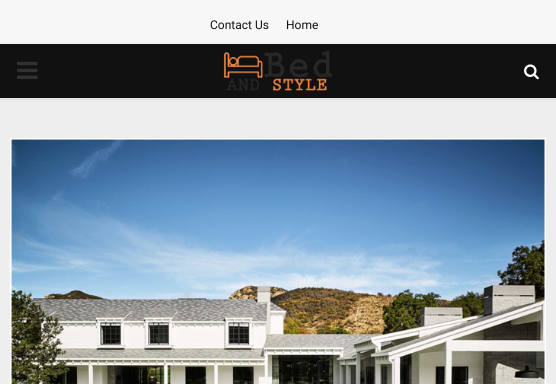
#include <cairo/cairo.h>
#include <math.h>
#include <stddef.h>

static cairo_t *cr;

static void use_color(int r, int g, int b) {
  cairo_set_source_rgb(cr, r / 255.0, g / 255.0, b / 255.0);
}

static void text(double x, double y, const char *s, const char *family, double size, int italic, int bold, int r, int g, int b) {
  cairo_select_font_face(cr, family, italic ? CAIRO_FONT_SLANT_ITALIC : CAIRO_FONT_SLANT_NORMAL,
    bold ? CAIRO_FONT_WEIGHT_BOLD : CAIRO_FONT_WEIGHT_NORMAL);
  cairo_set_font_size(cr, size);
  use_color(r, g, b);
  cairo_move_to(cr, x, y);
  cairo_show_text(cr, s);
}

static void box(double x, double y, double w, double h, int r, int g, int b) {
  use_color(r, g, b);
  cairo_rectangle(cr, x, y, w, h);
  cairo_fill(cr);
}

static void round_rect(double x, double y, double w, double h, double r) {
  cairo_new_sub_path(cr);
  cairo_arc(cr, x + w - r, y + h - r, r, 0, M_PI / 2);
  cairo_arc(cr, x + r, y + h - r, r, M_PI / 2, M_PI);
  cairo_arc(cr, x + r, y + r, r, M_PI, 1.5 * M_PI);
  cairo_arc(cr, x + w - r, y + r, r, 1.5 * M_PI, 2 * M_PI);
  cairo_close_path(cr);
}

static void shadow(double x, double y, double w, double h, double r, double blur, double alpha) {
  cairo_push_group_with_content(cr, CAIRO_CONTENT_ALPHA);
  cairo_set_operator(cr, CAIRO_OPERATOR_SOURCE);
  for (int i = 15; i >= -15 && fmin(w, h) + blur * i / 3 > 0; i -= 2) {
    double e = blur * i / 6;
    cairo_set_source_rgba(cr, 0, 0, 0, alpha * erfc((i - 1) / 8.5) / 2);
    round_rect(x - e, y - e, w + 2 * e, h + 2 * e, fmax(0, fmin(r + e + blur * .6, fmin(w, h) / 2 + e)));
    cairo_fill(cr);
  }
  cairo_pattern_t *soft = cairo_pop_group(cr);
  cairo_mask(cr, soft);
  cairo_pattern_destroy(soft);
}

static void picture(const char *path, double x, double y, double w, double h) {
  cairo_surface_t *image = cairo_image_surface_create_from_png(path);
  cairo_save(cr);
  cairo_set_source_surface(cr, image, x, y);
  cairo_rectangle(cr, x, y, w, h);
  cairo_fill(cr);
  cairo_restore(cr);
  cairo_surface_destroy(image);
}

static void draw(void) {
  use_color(238, 238, 238);
  cairo_paint(cr);
  box(0, 0, 556, 44, 247, 247, 247);
  use_color(190, 190, 190);
  shadow(0, 45, 556, 54, 0, 2.5, 0.46);
  box(0, 44, 556, 54, 17, 17, 17);
  picture("img_01.png", 17, 61, 21, 18);
  picture("img_02.png", 223, 50, 110, 41);
  picture("img_03.png", 524, 64, 15, 16);
  picture("img_04.png", 10, 138, 536, 246);
  text(210, 29, "Contact Us", "Roboto", 12, 0, 0, 17, 17, 17);
  text(286, 29, "Home", "Roboto", 12, 0, 0, 17, 17, 17);
}

int main(void) {
  cairo_surface_t *surface = cairo_image_surface_create(CAIRO_FORMAT_RGB24, 556, 384);
  cr = cairo_create(surface);
  cairo_font_options_t *options = cairo_font_options_create();
  cairo_font_options_set_hint_metrics(options, CAIRO_HINT_METRICS_OFF);
  cairo_font_options_set_hint_style(options, CAIRO_HINT_STYLE_NONE);
  cairo_set_font_options(cr, options);
  cairo_set_miter_limit(cr, 4);
  draw();
  cairo_surface_write_to_png(surface, "out.png");
  cairo_font_options_destroy(options);
  cairo_destroy(cr);
  cairo_surface_destroy(surface);
  return 0;
}
